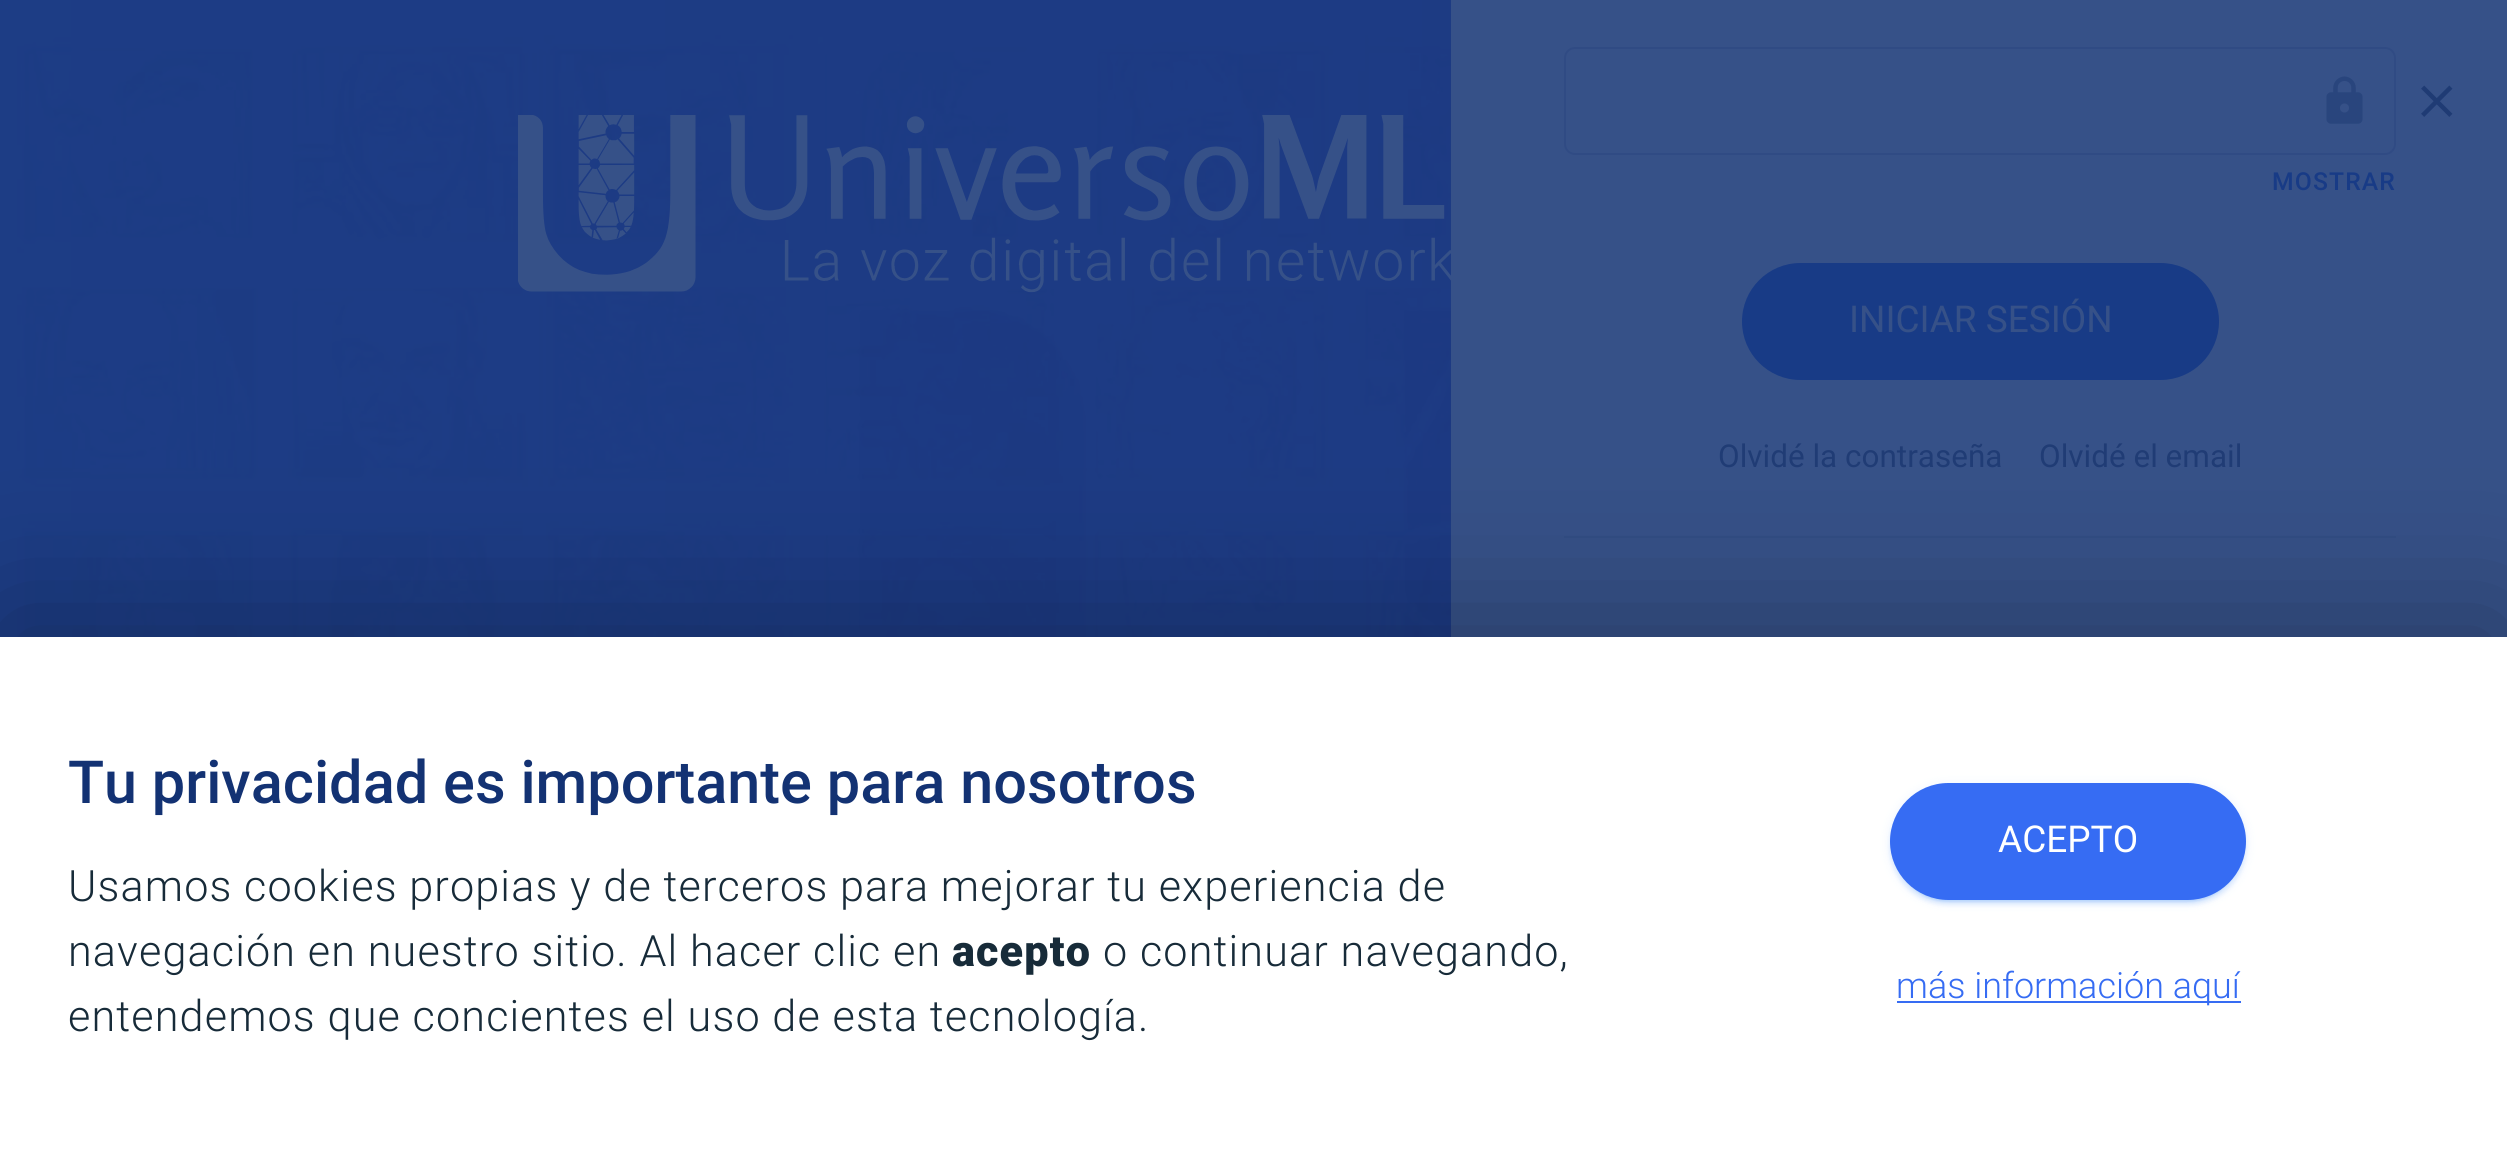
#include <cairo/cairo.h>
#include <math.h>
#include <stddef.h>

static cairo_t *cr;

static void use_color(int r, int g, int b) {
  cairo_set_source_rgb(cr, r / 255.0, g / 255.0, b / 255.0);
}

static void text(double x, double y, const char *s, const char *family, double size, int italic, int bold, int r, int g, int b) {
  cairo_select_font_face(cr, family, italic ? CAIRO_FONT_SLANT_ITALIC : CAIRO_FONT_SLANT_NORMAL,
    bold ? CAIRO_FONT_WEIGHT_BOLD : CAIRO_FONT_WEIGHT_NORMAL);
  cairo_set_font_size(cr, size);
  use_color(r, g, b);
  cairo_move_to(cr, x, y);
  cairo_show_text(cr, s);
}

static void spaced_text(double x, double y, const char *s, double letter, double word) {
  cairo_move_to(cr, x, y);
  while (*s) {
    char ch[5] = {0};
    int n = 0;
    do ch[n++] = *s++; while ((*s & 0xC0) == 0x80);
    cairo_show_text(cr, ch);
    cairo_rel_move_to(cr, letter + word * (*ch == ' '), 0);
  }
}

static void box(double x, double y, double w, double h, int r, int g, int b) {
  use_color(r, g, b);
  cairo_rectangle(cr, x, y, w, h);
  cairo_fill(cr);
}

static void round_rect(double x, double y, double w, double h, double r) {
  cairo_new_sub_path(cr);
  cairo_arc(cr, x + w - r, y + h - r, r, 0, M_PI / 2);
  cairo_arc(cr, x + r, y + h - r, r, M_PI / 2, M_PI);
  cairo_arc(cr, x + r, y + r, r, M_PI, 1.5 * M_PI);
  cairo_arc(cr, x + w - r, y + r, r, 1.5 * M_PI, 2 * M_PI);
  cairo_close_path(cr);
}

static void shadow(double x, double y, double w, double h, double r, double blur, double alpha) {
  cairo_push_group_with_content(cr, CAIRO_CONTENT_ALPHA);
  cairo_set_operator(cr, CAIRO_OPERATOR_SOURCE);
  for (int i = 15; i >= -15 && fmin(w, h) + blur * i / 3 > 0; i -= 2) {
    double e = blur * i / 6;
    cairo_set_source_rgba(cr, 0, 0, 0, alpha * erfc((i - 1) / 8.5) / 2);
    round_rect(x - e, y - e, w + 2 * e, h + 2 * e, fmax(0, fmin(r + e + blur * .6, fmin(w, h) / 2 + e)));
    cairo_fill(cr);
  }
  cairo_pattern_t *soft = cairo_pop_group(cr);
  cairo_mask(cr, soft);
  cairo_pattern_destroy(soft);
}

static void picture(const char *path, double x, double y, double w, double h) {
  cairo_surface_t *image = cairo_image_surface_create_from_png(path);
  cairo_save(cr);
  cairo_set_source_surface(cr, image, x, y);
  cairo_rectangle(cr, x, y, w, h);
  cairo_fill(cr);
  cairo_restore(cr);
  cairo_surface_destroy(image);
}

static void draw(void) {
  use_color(255, 255, 255);
  cairo_paint(cr);
  picture("img_01.png", 0, 0, 1451, 637);
  picture("img_02.png", 518, 115, 933, 178);
  box(1451, 0, 1056, 637, 54, 81, 136);
  picture("img_03.png", 2421, 85, 32, 32);
  round_rect(1565, 48, 830, 106, 10);
  use_color(48, 75, 132);
  cairo_stroke(cr);
  picture("img_04.png", 2326, 76, 37, 48);
  use_color(24, 59, 134);
  round_rect(1742, 263, 477, 117, 58.5);
  cairo_fill(cr);
  box(1564, 536, 832, 2, 50, 78, 133);
  use_color(0, 0, 0);
  shadow(0, 614, 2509, 527, 0, 67.5, 0.25);
  box(0, 637, 2507, 526, 255, 255, 255);
  use_color(62, 142, 247);
  shadow(1890, 785, 356, 117, 58.5, 5.5, 0.12);
  shadow(1895, 794, 346, 108, 54, 1, 0.2);
  shadow(1890, 788, 356, 117, 58.5, 2, 0.14);
  use_color(54, 108, 243);
  round_rect(1890, 783, 356, 117, 58.5);
  cairo_fill(cr);
  box(1897, 1001, 344, 2, 54, 108, 243);
  cairo_select_font_face(cr, "Roboto Medium", CAIRO_FONT_SLANT_NORMAL, CAIRO_FONT_WEIGHT_NORMAL);
  cairo_set_font_size(cr, 24.75);
  use_color(24, 59, 134);
  spaced_text(2272, 190, "MOSTRAR", 1.12, 0);
  text(1849, 332, "INICIAR SESIÓN", "Roboto", 37, 0, 0, 54, 81, 136);
  text(1718, 467, "Olvidé la contraseña", "Roboto", 31.5, 0, 0, 32, 60, 117);
  text(2039, 467, "Olvidé el email", "Roboto", 31.5, 0, 0, 32, 60, 117);
  text(68, 803, "Tu privacidad es importante para nosotros", "Roboto Medium", 59.4, 0, 0, 19, 50, 115);
  cairo_select_font_face(cr, "Roboto Light", CAIRO_FONT_SLANT_NORMAL, CAIRO_FONT_WEIGHT_NORMAL);
  cairo_set_font_size(cr, 43.2);
  use_color(23, 43, 57);
  spaced_text(68, 901, "Usamos cookies propias y de terceros para mejorar tu experiencia de", 1.12, 0);
  spaced_text(68, 966, "navegación en nuestro sitio. Al hacer clic en", 1.12, 0);
  cairo_select_font_face(cr, "Roboto Black", CAIRO_FONT_SLANT_NORMAL, CAIRO_FONT_WEIGHT_NORMAL);
  spaced_text(952, 966, "acepto", 1.12, 0);
  cairo_select_font_face(cr, "Roboto Light", CAIRO_FONT_SLANT_NORMAL, CAIRO_FONT_WEIGHT_NORMAL);
  spaced_text(1103, 966, "o continuar navegando,", 1.12, 0);
  spaced_text(68, 1031, "entendemos que concientes el uso de esta tecnología.", 1.12, 0);
  text(1998, 852, "ACEPTO", "Roboto", 37, 0, 0, 255, 255, 255);
  text(1896, 998, "más información aquí", "Roboto Light", 36, 0, 0, 54, 108, 243);
}

int main(void) {
  cairo_surface_t *surface = cairo_image_surface_create(CAIRO_FORMAT_RGB24, 2507, 1163);
  cr = cairo_create(surface);
  cairo_font_options_t *options = cairo_font_options_create();
  cairo_font_options_set_hint_metrics(options, CAIRO_HINT_METRICS_OFF);
  cairo_font_options_set_hint_style(options, CAIRO_HINT_STYLE_NONE);
  cairo_set_font_options(cr, options);
  cairo_set_miter_limit(cr, 4);
  draw();
  cairo_surface_write_to_png(surface, "out.png");
  cairo_font_options_destroy(options);
  cairo_destroy(cr);
  cairo_surface_destroy(surface);
  return 0;
}
